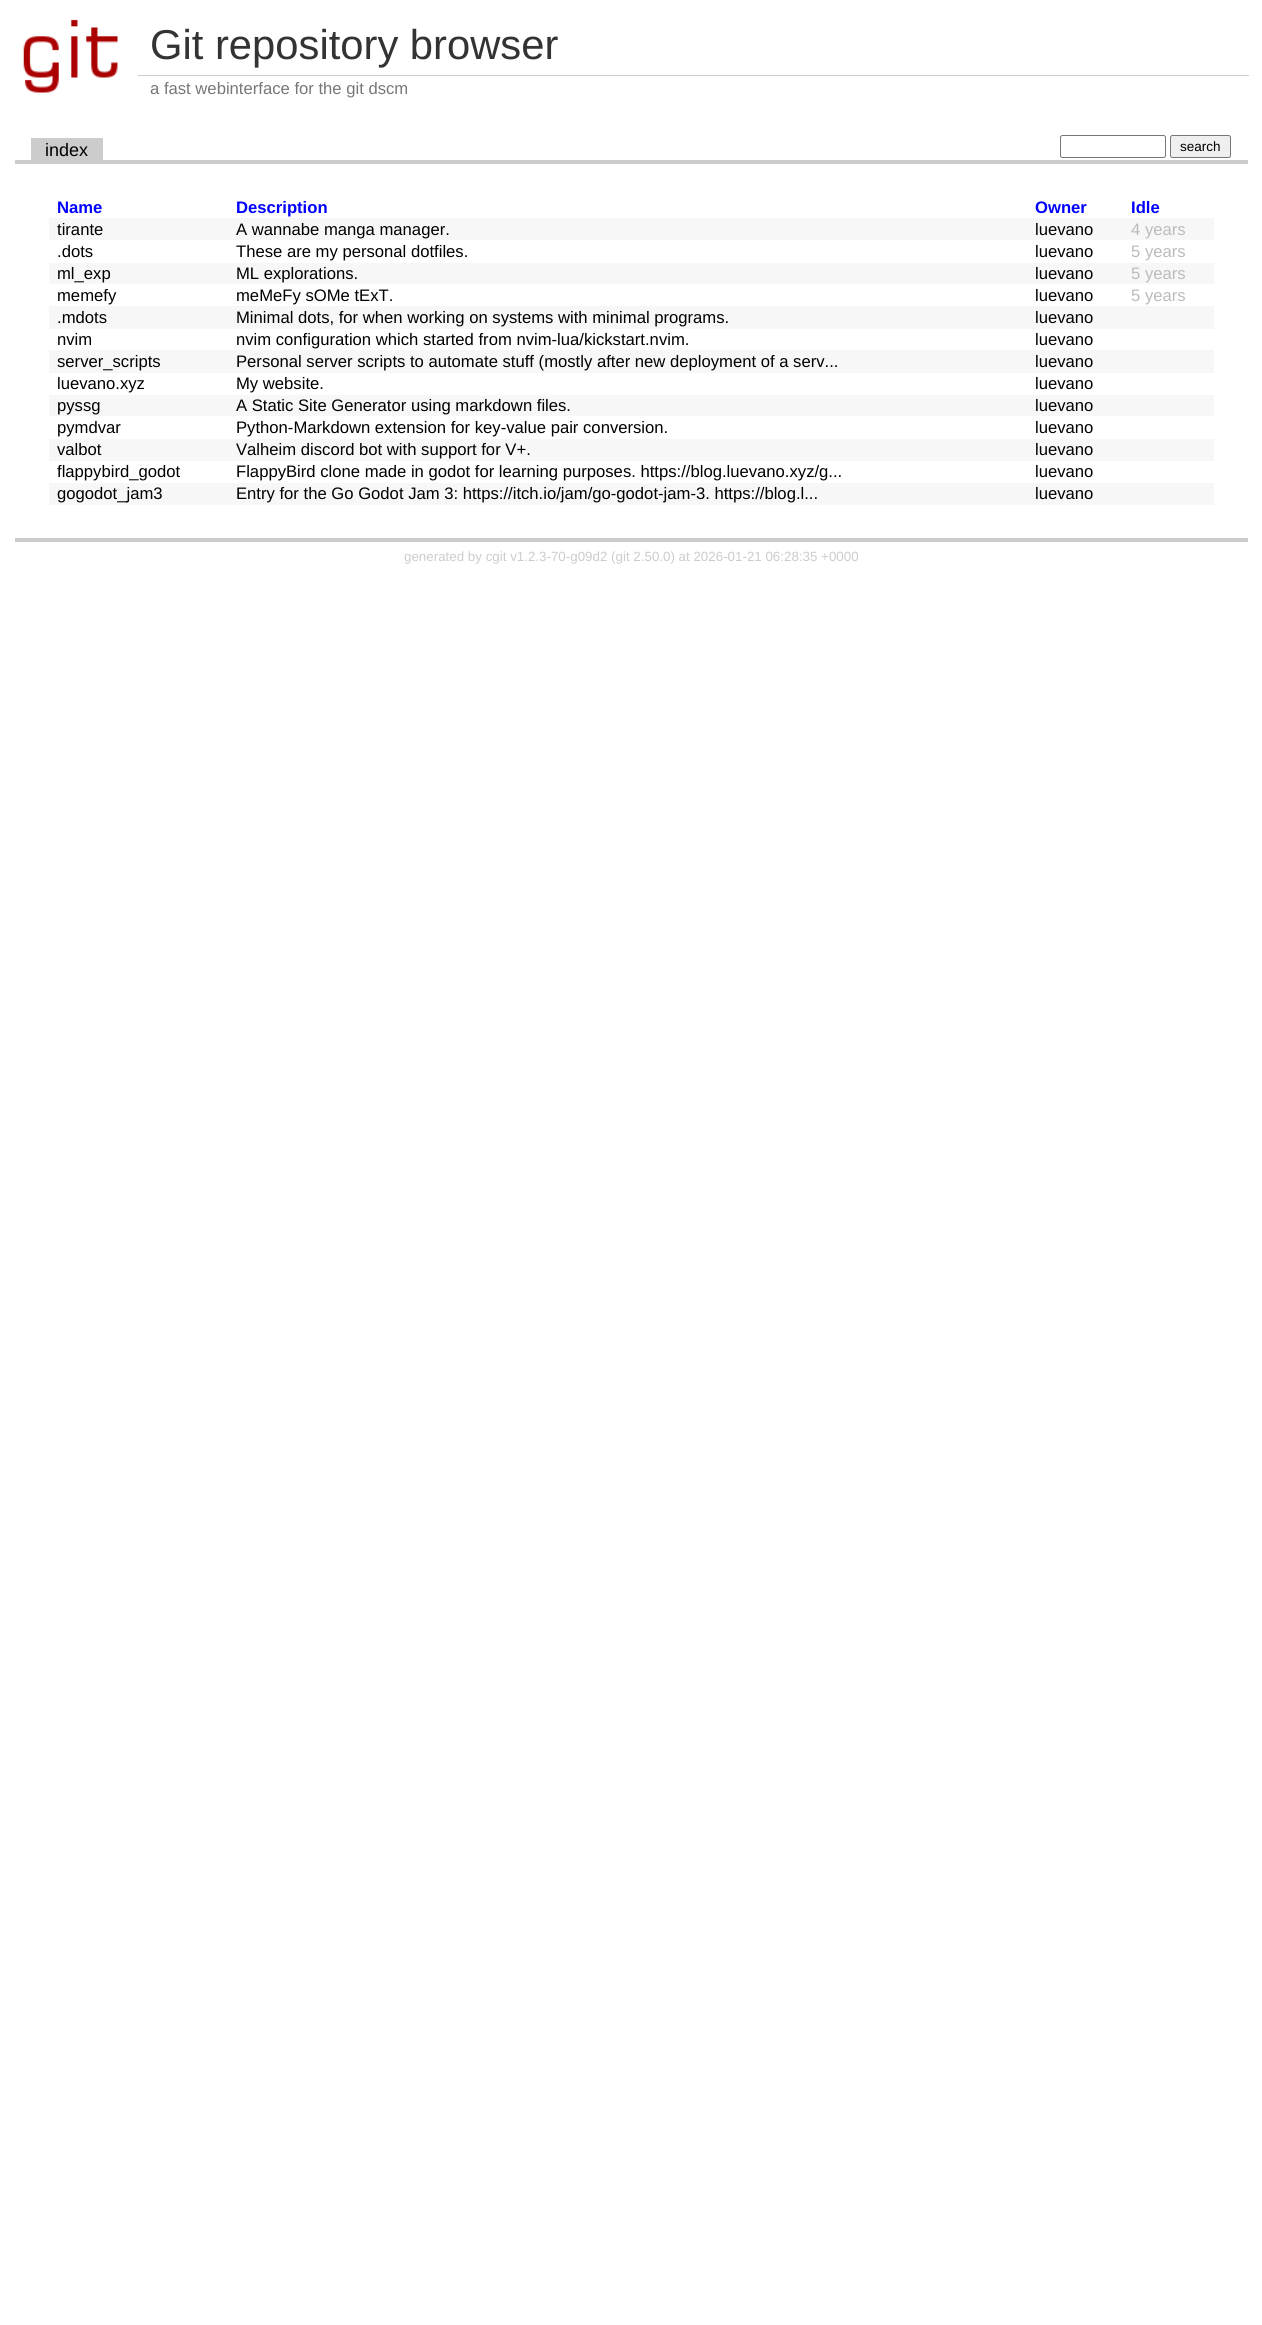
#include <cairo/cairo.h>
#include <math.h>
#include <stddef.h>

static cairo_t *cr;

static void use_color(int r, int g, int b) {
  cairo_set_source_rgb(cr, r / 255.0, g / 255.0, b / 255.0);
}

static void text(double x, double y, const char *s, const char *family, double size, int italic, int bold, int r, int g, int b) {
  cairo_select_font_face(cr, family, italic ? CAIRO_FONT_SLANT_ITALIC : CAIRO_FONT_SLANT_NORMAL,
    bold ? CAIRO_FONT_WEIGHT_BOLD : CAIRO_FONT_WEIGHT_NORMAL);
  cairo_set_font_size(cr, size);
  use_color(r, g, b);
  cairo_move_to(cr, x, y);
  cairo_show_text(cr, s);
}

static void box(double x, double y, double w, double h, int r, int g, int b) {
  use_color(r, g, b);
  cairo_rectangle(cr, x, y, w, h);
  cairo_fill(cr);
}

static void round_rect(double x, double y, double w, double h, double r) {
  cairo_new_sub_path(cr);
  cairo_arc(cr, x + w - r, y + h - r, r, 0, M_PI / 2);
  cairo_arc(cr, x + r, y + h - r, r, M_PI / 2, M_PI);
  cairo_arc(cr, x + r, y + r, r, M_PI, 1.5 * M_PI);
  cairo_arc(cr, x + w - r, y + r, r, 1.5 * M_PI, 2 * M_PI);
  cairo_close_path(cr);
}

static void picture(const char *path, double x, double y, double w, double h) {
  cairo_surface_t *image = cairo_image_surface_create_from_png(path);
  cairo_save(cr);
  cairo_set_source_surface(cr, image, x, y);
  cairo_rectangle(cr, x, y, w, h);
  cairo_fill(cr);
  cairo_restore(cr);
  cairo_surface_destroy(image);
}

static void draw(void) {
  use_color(255, 255, 255);
  cairo_paint(cr);
  picture("img_01.png", 23, 19, 95, 74);
  box(138, 75, 1111, 1, 204, 204, 204);
  box(15, 160, 1233, 4, 204, 204, 204);
  box(31, 138, 72, 22, 204, 204, 204);
  round_rect(1060.5, 135.5, 105, 22, 2);
  use_color(118, 118, 118);
  cairo_set_line_width(cr, 1);
  cairo_stroke(cr);
  use_color(239, 239, 239);
  round_rect(1170.5, 135.5, 60, 22, 2);
  cairo_fill_preserve(cr);
  use_color(118, 118, 118);
  cairo_stroke(cr);
  box(15, 538, 1233, 4, 204, 204, 204);
  box(49, 218, 1165, 22, 247, 247, 247);
  box(49, 263, 1165, 21, 247, 247, 247);
  box(49, 306, 1165, 23, 247, 247, 247);
  box(49, 350, 1165, 23, 247, 247, 247);
  box(49, 395, 1165, 21, 247, 247, 247);
  box(49, 439, 1165, 22, 247, 247, 247);
  box(49, 483, 1165, 22, 247, 247, 247);
  text(150, 59, "Git repository browser", "Liberation Sans", 41.75, 0, 0, 51, 51, 51);
  text(150, 94, "a fast webinterface for the git dscm", "Liberation Sans", 16.65, 0, 0, 119, 119, 119);
  text(45, 156, "index", "Liberation Sans", 18, 0, 0, 0, 0, 0);
  text(1180, 151, "search", "Liberation Sans", 13.5, 0, 0, 0, 0, 0);
  text(57, 213, "Name", "Liberation Sans", 16.65, 0, 1, 0, 0, 255);
  text(236, 213, "Description", "Liberation Sans", 16.65, 0, 1, 0, 0, 255);
  text(1035, 213, "Owner", "Liberation Sans", 16.65, 0, 1, 0, 0, 255);
  text(1131, 213, "Idle", "Liberation Sans", 16.65, 0, 1, 0, 0, 255);
  text(57, 235, "tirante", "Liberation Sans", 16.65, 0, 0, 0, 0, 0);
  text(236, 235, "A wannabe manga manager.", "Liberation Sans", 16.65, 0, 0, 0, 0, 0);
  text(1035, 235, "luevano", "Liberation Sans", 16.65, 0, 0, 0, 0, 0);
  text(1131, 235, "4 years", "Liberation Sans", 16.65, 0, 0, 187, 187, 187);
  text(57, 257, ".dots", "Liberation Sans", 16.65, 0, 0, 0, 0, 0);
  text(236, 257, "These are my personal dotfiles.", "Liberation Sans", 16.65, 0, 0, 0, 0, 0);
  text(1035, 257, "luevano", "Liberation Sans", 16.65, 0, 0, 0, 0, 0);
  text(1131, 257, "5 years", "Liberation Sans", 16.65, 0, 0, 187, 187, 187);
  text(57, 279, "ml_exp", "Liberation Sans", 16.65, 0, 0, 0, 0, 0);
  text(236, 279, "ML explorations.", "Liberation Sans", 16.65, 0, 0, 0, 0, 0);
  text(1035, 279, "luevano", "Liberation Sans", 16.65, 0, 0, 0, 0, 0);
  text(1131, 279, "5 years", "Liberation Sans", 16.65, 0, 0, 187, 187, 187);
  text(57, 301, "memefy", "Liberation Sans", 16.65, 0, 0, 0, 0, 0);
  text(236, 301, "meMeFy sOMe tExT.", "Liberation Sans", 16.65, 0, 0, 0, 0, 0);
  text(1035, 301, "luevano", "Liberation Sans", 16.65, 0, 0, 0, 0, 0);
  text(1131, 301, "5 years", "Liberation Sans", 16.65, 0, 0, 187, 187, 187);
  text(57, 323, ".mdots", "Liberation Sans", 16.65, 0, 0, 0, 0, 0);
  text(236, 323, "Minimal dots, for when working on systems with minimal programs.", "Liberation Sans", 16.65, 0, 0, 0, 0, 0);
  text(1035, 323, "luevano", "Liberation Sans", 16.65, 0, 0, 0, 0, 0);
  text(57, 345, "nvim", "Liberation Sans", 16.65, 0, 0, 0, 0, 0);
  text(236, 345, "nvim configuration which started from nvim-lua/kickstart.nvim.", "Liberation Sans", 16.65, 0, 0, 0, 0, 0);
  text(1035, 345, "luevano", "Liberation Sans", 16.65, 0, 0, 0, 0, 0);
  text(57, 367, "server_scripts", "Liberation Sans", 16.65, 0, 0, 0, 0, 0);
  text(236, 367, "Personal server scripts to automate stuff (mostly after new deployment of a serv...", "Liberation Sans", 16.65, 0, 0, 0, 0, 0);
  text(1035, 367, "luevano", "Liberation Sans", 16.65, 0, 0, 0, 0, 0);
  text(57, 389, "luevano.xyz", "Liberation Sans", 16.65, 0, 0, 0, 0, 0);
  text(236, 389, "My website.", "Liberation Sans", 16.65, 0, 0, 0, 0, 0);
  text(1035, 389, "luevano", "Liberation Sans", 16.65, 0, 0, 0, 0, 0);
  text(57, 411, "pyssg", "Liberation Sans", 16.65, 0, 0, 0, 0, 0);
  text(236, 411, "A Static Site Generator using markdown files.", "Liberation Sans", 16.65, 0, 0, 0, 0, 0);
  text(1035, 411, "luevano", "Liberation Sans", 16.65, 0, 0, 0, 0, 0);
  text(57, 433, "pymdvar", "Liberation Sans", 16.65, 0, 0, 0, 0, 0);
  text(236, 433, "Python-Markdown extension for key-value pair conversion.", "Liberation Sans", 16.65, 0, 0, 0, 0, 0);
  text(1035, 433, "luevano", "Liberation Sans", 16.65, 0, 0, 0, 0, 0);
  text(57, 455, "valbot", "Liberation Sans", 16.65, 0, 0, 0, 0, 0);
  text(236, 455, "Valheim discord bot with support for V+.", "Liberation Sans", 16.65, 0, 0, 0, 0, 0);
  text(1035, 455, "luevano", "Liberation Sans", 16.65, 0, 0, 0, 0, 0);
  text(57, 477, "flappybird_godot", "Liberation Sans", 16.65, 0, 0, 0, 0, 0);
  text(236, 477, "FlappyBird clone made in godot for learning purposes. https://blog.luevano.xyz/g...", "Liberation Sans", 16.65, 0, 0, 0, 0, 0);
  text(1035, 477, "luevano", "Liberation Sans", 16.65, 0, 0, 0, 0, 0);
  text(57, 499, "gogodot_jam3", "Liberation Sans", 16.65, 0, 0, 0, 0, 0);
  text(236, 499, "Entry for the Go Godot Jam 3: https://itch.io/jam/go-godot-jam-3. https://blog.l...", "Liberation Sans", 16.65, 0, 0, 0, 0, 0);
  text(1035, 499, "luevano", "Liberation Sans", 16.65, 0, 0, 0, 0, 0);
  text(404, 561, "generated by cgit v1.2.3-70-g09d2 (git 2.50.0) at 2026-01-21 06:28:35 +0000", "Liberation Sans", 13.35, 0, 0, 204, 204, 204);
}

int main(void) {
  cairo_surface_t *surface = cairo_image_surface_create(CAIRO_FORMAT_RGB24, 1262, 2325);
  cr = cairo_create(surface);
  cairo_font_options_t *options = cairo_font_options_create();
  cairo_font_options_set_hint_metrics(options, CAIRO_HINT_METRICS_OFF);
  cairo_font_options_set_hint_style(options, CAIRO_HINT_STYLE_NONE);
  cairo_set_font_options(cr, options);
  cairo_set_miter_limit(cr, 4);
  draw();
  cairo_surface_write_to_png(surface, "out.png");
  cairo_font_options_destroy(options);
  cairo_destroy(cr);
  cairo_surface_destroy(surface);
  return 0;
}
